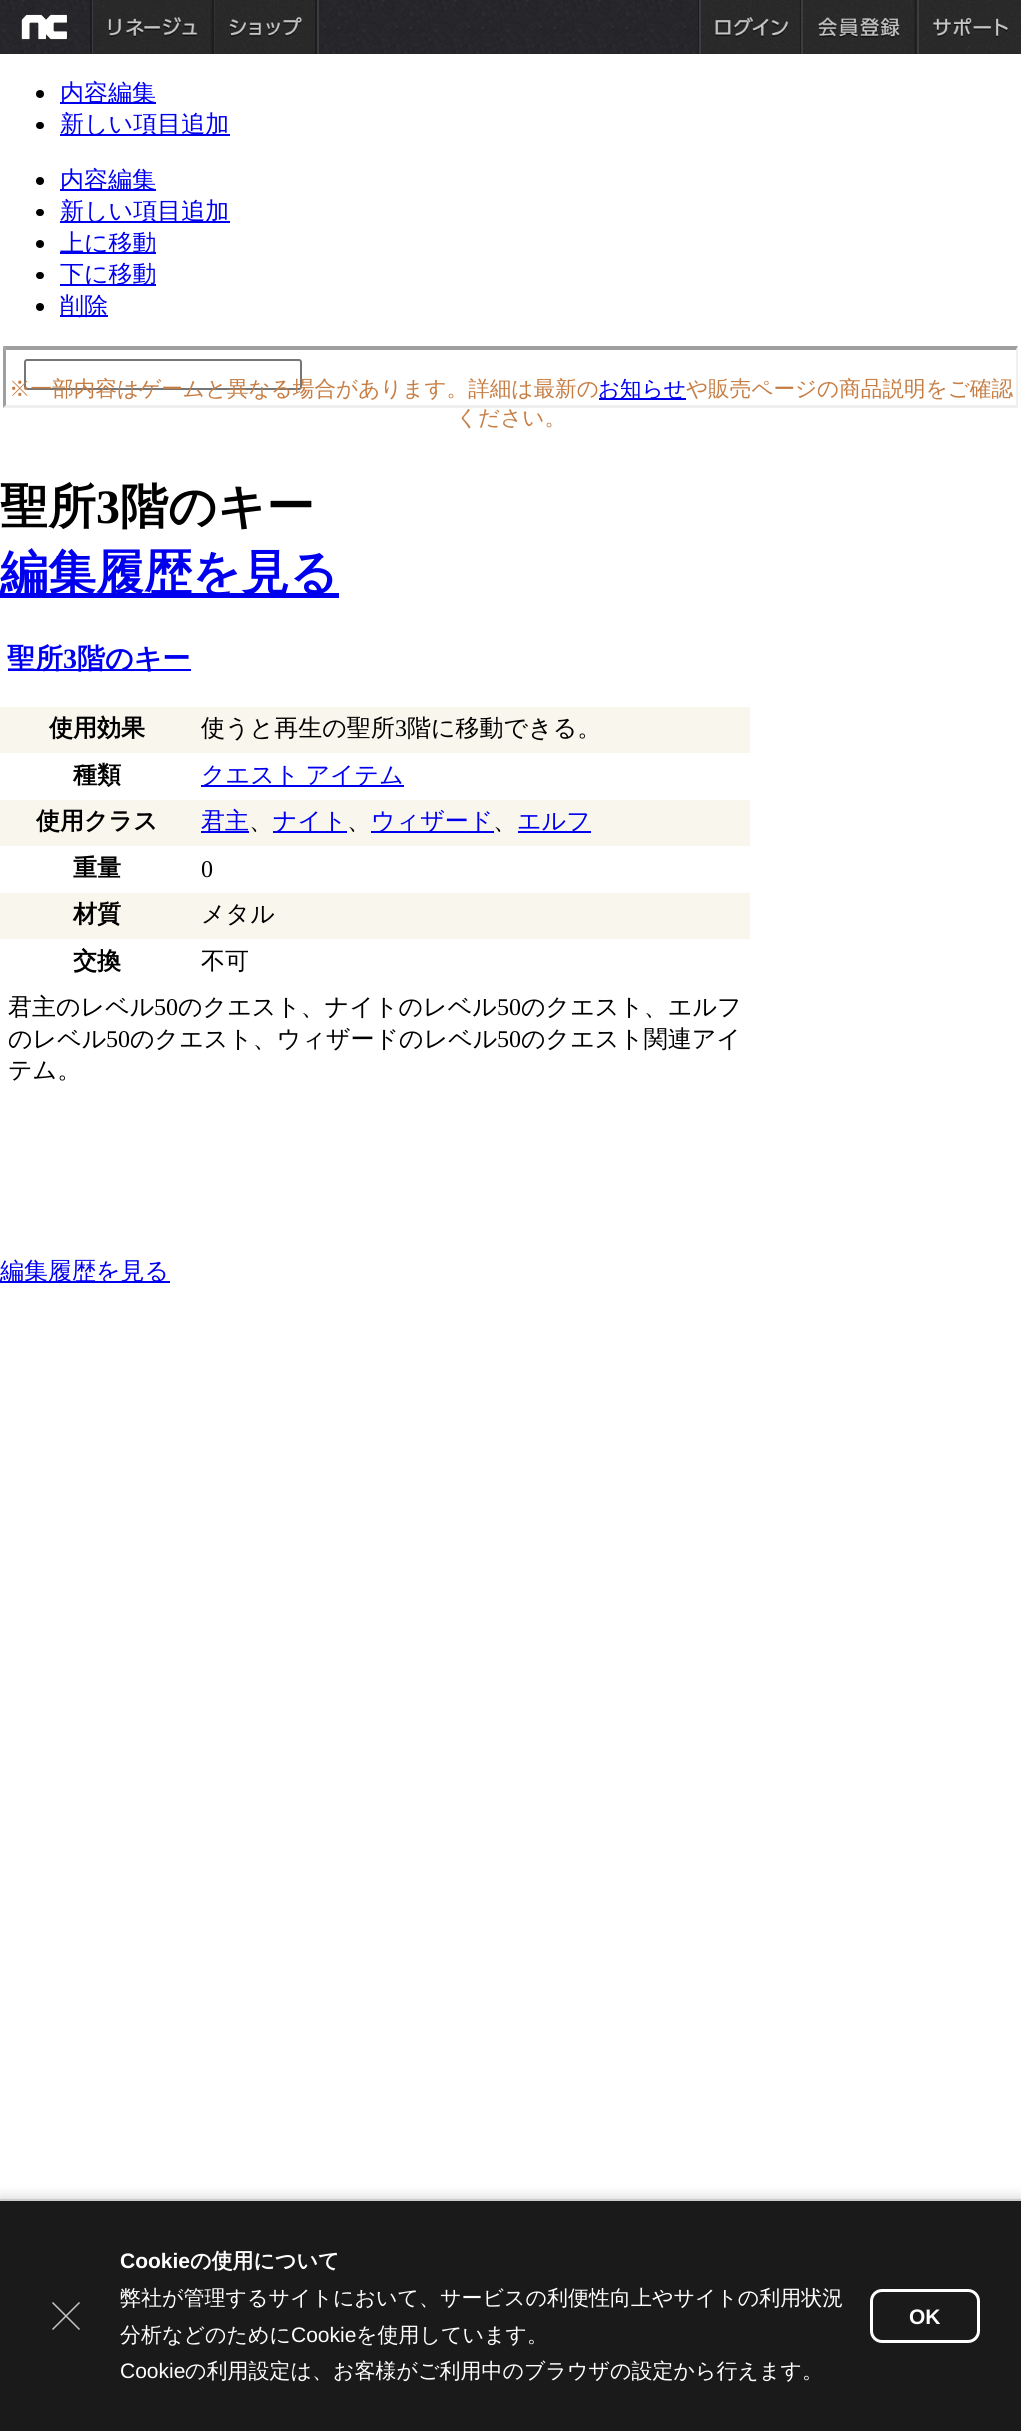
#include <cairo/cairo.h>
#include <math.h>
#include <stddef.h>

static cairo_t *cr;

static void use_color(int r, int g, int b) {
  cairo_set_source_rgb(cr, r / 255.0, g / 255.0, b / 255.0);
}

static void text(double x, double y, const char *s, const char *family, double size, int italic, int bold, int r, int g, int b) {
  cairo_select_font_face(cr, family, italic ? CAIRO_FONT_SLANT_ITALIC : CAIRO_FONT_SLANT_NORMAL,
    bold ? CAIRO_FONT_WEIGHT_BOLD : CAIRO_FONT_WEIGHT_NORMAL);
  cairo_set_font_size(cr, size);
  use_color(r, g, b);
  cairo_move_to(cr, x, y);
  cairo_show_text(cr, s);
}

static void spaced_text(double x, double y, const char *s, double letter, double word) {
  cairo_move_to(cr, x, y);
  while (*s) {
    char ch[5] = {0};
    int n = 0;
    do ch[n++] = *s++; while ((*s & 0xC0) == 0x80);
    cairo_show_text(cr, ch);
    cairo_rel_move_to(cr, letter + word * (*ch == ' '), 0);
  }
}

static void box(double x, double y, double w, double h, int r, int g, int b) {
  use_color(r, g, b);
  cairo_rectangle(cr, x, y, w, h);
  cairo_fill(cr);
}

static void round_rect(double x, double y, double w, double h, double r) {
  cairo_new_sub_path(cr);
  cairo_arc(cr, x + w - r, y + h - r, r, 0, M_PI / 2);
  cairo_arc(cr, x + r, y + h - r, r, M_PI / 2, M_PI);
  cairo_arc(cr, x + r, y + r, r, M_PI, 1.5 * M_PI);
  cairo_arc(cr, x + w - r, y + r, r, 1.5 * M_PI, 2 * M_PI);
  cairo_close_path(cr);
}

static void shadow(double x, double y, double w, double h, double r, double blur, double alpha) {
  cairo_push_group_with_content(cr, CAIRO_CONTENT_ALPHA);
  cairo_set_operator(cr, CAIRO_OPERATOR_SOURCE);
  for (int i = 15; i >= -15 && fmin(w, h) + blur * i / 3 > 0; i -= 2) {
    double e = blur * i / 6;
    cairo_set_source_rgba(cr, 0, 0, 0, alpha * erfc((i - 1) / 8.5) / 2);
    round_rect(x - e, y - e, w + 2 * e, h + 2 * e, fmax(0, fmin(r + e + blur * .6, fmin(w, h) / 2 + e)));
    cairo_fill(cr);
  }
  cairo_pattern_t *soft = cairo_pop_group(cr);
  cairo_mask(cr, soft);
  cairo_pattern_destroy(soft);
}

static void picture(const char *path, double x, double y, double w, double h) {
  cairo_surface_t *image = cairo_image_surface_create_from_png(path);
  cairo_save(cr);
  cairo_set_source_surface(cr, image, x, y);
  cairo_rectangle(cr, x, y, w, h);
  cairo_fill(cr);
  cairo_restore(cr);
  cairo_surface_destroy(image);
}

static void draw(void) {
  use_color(255, 255, 255);
  cairo_paint(cr);
  picture("img_01.png", 0, 0, 800, 54);
  box(92, 0, 1, 54, 60, 59, 64);
  picture("img_02.png", 21, 14, 46, 26);
  box(90, 0, 2, 54, 29, 29, 32);
  box(214, 0, 1, 54, 60, 59, 64);
  box(212, 0, 2, 54, 29, 29, 32);
  picture("img_03.png", 93, 0, 119, 54);
  box(317, 0, 2, 54, 60, 59, 64);
  picture("img_04.png", 214, 0, 101, 54);
  box(315, 0, 2, 54, 29, 29, 32);
  box(698, 0, 1, 54, 29, 29, 32);
  picture("img_05.png", 701, 0, 99, 54);
  box(699, 0, 2, 54, 60, 59, 64);
  box(800, 0, 1, 54, 29, 29, 32);
  picture("img_06.png", 803, 0, 112, 54);
  box(801, 0, 2, 54, 60, 59, 64);
  box(915, 0, 2, 54, 29, 29, 32);
  picture("img_07.png", 916, 0, 105, 54);
  box(917, 0, 2, 54, 60, 59, 64);
  use_color(0, 0, 0);
  cairo_arc(cr, 40, 94, 4, 0, 2 * M_PI);
  cairo_fill(cr);
  box(60, 102, 96, 2, 0, 0, 238);
  use_color(0, 0, 0);
  round_rect(36, 122, 8, 7, 3.5);
  cairo_fill(cr);
  box(60, 134, 170, 2, 0, 0, 238);
  use_color(0, 0, 0);
  cairo_arc(cr, 40, 181, 4, 0, 2 * M_PI);
  cairo_fill(cr);
  box(60, 189, 96, 2, 0, 0, 238);
  use_color(0, 0, 0);
  round_rect(36, 209, 8, 7, 3.5);
  cairo_fill(cr);
  box(60, 221, 170, 2, 0, 0, 238);
  use_color(0, 0, 0);
  cairo_arc(cr, 40, 244, 4, 0, 2 * M_PI);
  cairo_fill(cr);
  box(60, 252, 96, 2, 0, 0, 238);
  use_color(0, 0, 0);
  round_rect(36, 272, 8, 7, 3.5);
  cairo_fill(cr);
  box(60, 284, 96, 2, 0, 0, 238);
  use_color(0, 0, 0);
  cairo_arc(cr, 40, 307, 4, 0, 2 * M_PI);
  cairo_fill(cr);
  box(60, 315, 48, 2, 0, 0, 238);
  use_color(159, 159, 159);
  cairo_new_path(cr);
  cairo_move_to(cr, 3, 346);
  cairo_line_to(cr, 1018, 346);
  cairo_line_to(cr, 1016, 350);
  cairo_line_to(cr, 6, 350);
  cairo_close_path(cr);
  cairo_fill(cr);
  use_color(239, 239, 239);
  cairo_new_path(cr);
  cairo_move_to(cr, 1018, 346);
  cairo_line_to(cr, 1018, 408);
  cairo_line_to(cr, 1016, 405);
  cairo_line_to(cr, 1016, 350);
  cairo_close_path(cr);
  cairo_fill(cr);
  cairo_new_path(cr);
  cairo_move_to(cr, 1018, 408);
  cairo_line_to(cr, 3, 408);
  cairo_line_to(cr, 6, 405);
  cairo_line_to(cr, 1016, 405);
  cairo_close_path(cr);
  cairo_fill(cr);
  use_color(159, 159, 159);
  cairo_new_path(cr);
  cairo_move_to(cr, 3, 408);
  cairo_line_to(cr, 3, 346);
  cairo_line_to(cr, 6, 350);
  cairo_line_to(cr, 6, 405);
  cairo_close_path(cr);
  cairo_fill(cr);
  round_rect(25, 360, 276, 29, 2);
  use_color(118, 118, 118);
  cairo_stroke(cr);
  box(599, 398, 87, 2, 0, 0, 238);
  box(0, 593, 339, 5, 0, 0, 238);
  box(8, 669, 183, 2, 0, 0, 238);
  box(0, 707, 750, 46, 248, 246, 237);
  box(201, 785, 203, 2, 0, 0, 238);
  box(0, 800, 750, 46, 248, 246, 237);
  box(201, 831, 48, 2, 0, 0, 238);
  box(273, 831, 74, 2, 0, 0, 238);
  box(371, 831, 123, 2, 0, 0, 238);
  box(518, 831, 73, 2, 0, 0, 238);
  box(0, 893, 750, 46, 248, 246, 237);
  box(0, 1281, 170, 2, 0, 0, 238);
  use_color(0, 0, 0);
  shadow(0, 2199, 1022, 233, 0, 7.5, 0.2);
  box(0, 2201, 1021, 230, 26, 26, 26);
  box(0, 2199, 1021, 2, 204, 204, 204);
  cairo_new_path(cr);
  cairo_move_to(cr, 52.5, 2302.5);
  cairo_line_to(cr, 79.5, 2329.5);
  cairo_move_to(cr, 52.5, 2329.5);
  cairo_line_to(cr, 79.5, 2302.5);
  use_color(198, 198, 198);
  cairo_set_line_width(cr, 1.5);
  cairo_stroke(cr);
  round_rect(871.5, 2290.5, 107, 51, 10.5);
  use_color(255, 255, 255);
  cairo_set_line_width(cr, 3);
  cairo_stroke(cr);
  text(60, 101, "内容編集", "WenQuanYi Zen Hei Medium", 24, 0, 0, 0, 0, 238);
  text(60, 132, "新しい項目追加", "WenQuanYi Zen Hei Medium", 24, 0, 0, 0, 0, 238);
  text(60, 188, "内容編集", "WenQuanYi Zen Hei Medium", 24, 0, 0, 0, 0, 238);
  text(60, 219, "新しい項目追加", "WenQuanYi Zen Hei Medium", 24, 0, 0, 0, 0, 238);
  text(60, 251, "上に移動", "WenQuanYi Zen Hei Medium", 24, 0, 0, 0, 0, 238);
  text(60, 282, "下に移動", "WenQuanYi Zen Hei Medium", 24, 0, 0, 0, 0, 238);
  text(60, 314, "削除", "WenQuanYi Zen Hei Medium", 24, 0, 0, 0, 0, 238);
  text(9, 396, "※一部内容はゲームと異なる場合があります。詳細は最新の", "WenQuanYi Zen Hei Medium", 21.6, 0, 0, 198, 125, 67);
  text(598, 396, "お知らせ", "WenQuanYi Zen Hei Medium", 21.6, 0, 0, 0, 0, 238);
  text(686, 396, "や販売ページの商品説明をご確認", "WenQuanYi Zen Hei Medium", 21.6, 0, 0, 198, 125, 67);
  text(456, 425, "ください。", "WenQuanYi Zen Hei Medium", 21.6, 0, 0, 198, 125, 67);
  text(0, 523, "聖所", "WenQuanYi Zen Hei", 48, 0, 1, 0, 0, 0);
  text(96, 523, "3", "Liberation Serif", 48, 0, 1, 0, 0, 0);
  text(120, 523, "階のキー", "WenQuanYi Zen Hei", 48, 0, 1, 0, 0, 0);
  text(0, 589, "編集履歴を見る", "WenQuanYi Zen Hei", 48, 0, 1, 0, 0, 238);
  text(7, 668, "聖所", "WenQuanYi Zen Hei", 28, 0, 1, 0, 0, 238);
  text(63, 668, "3", "Liberation Serif", 28, 0, 1, 0, 0, 238);
  text(77, 668, "階のキー", "WenQuanYi Zen Hei", 28, 0, 1, 0, 0, 238);
  text(49, 736, "使用効果", "WenQuanYi Zen Hei", 24, 0, 1, 0, 0, 0);
  text(201, 736, "使うと再生の聖所", "WenQuanYi Zen Hei Medium", 24, 0, 0, 0, 0, 0);
  text(395, 736, "3", "Liberation Serif", 24, 0, 0, 0, 0, 0);
  text(407, 736, "階に移動できる。", "WenQuanYi Zen Hei Medium", 24, 0, 0, 0, 0, 0);
  text(73, 783, "種類", "WenQuanYi Zen Hei", 24, 0, 1, 0, 0, 0);
  cairo_select_font_face(cr, "WenQuanYi Zen Hei Medium", CAIRO_FONT_SLANT_NORMAL, CAIRO_FONT_WEIGHT_NORMAL);
  use_color(0, 0, 238);
  spaced_text(201, 783, "クエスト アイテム", 0, -1);
  text(36, 829, "使用クラス", "WenQuanYi Zen Hei", 24, 0, 1, 0, 0, 0);
  text(201, 829, "君主", "WenQuanYi Zen Hei Medium", 24, 0, 0, 0, 0, 238);
  text(249, 829, "、", "WenQuanYi Zen Hei Medium", 24, 0, 0, 0, 0, 0);
  text(273, 829, "ナイト", "WenQuanYi Zen Hei Medium", 24, 0, 0, 0, 0, 238);
  text(347, 829, "、", "WenQuanYi Zen Hei Medium", 24, 0, 0, 0, 0, 0);
  text(371, 829, "ウィザード", "WenQuanYi Zen Hei Medium", 24, 0, 0, 0, 0, 238);
  text(493, 829, "、", "WenQuanYi Zen Hei Medium", 24, 0, 0, 0, 0, 0);
  text(517, 829, "エルフ", "WenQuanYi Zen Hei Medium", 24, 0, 0, 0, 0, 238);
  text(73, 876, "重量", "WenQuanYi Zen Hei", 24, 0, 1, 0, 0, 0);
  text(201, 877, "0", "Liberation Serif", 24, 0, 0, 0, 0, 0);
  text(73, 922, "材質", "WenQuanYi Zen Hei", 24, 0, 1, 0, 0, 0);
  text(201, 922, "メタル", "WenQuanYi Zen Hei Medium", 24, 0, 0, 0, 0, 0);
  text(73, 969, "交換", "WenQuanYi Zen Hei", 24, 0, 1, 0, 0, 0);
  text(201, 969, "不可", "WenQuanYi Zen Hei Medium", 24, 0, 0, 0, 0, 0);
  text(8, 1015, "君主のレベル", "WenQuanYi Zen Hei Medium", 24, 0, 0, 0, 0, 0);
  text(154, 1015, "50", "Liberation Serif", 24, 0, 0, 0, 0, 0);
  text(178, 1015, "のクエスト、ナイトのレベル", "WenQuanYi Zen Hei Medium", 24, 0, 0, 0, 0, 0);
  text(497, 1015, "50", "Liberation Serif", 24, 0, 0, 0, 0, 0);
  text(521, 1015, "のクエスト、エルフ", "WenQuanYi Zen Hei Medium", 24, 0, 0, 0, 0, 0);
  text(8, 1047, "のレベル", "WenQuanYi Zen Hei Medium", 24, 0, 0, 0, 0, 0);
  text(106, 1047, "50", "Liberation Serif", 24, 0, 0, 0, 0, 0);
  text(130, 1047, "のクエスト、ウィザードのレベル", "WenQuanYi Zen Hei Medium", 24, 0, 0, 0, 0, 0);
  text(497, 1047, "50", "Liberation Serif", 24, 0, 0, 0, 0, 0);
  text(521, 1047, "のクエスト関連アイ", "WenQuanYi Zen Hei Medium", 24, 0, 0, 0, 0, 0);
  text(8, 1078, "テム。", "WenQuanYi Zen Hei Medium", 24, 0, 0, 0, 0, 0);
  text(0, 1279, "編集履歴を見る", "WenQuanYi Zen Hei Medium", 24, 0, 0, 0, 0, 238);
  text(120, 2268, "Cookie", "Liberation Sans", 21, 0, 1, 255, 255, 255);
  text(190, 2268, "の使用について", "WenQuanYi Zen Hei", 21, 0, 1, 255, 255, 255);
  text(120, 2305, "弊社が管理するサイトにおいて、サービスの利便性向上やサイトの利用状況", "WenQuanYi Zen Hei Medium", 21, 0, 0, 255, 255, 255);
  text(120, 2342, "分析などのために", "WenQuanYi Zen Hei Medium", 21, 0, 0, 255, 255, 255);
  text(291, 2342, "Cookie", "Liberation Sans", 21, 0, 0, 255, 255, 255);
  text(356, 2342, "を使用しています。", "WenQuanYi Zen Hei Medium", 21, 0, 0, 255, 255, 255);
  text(120, 2378, "Cookie", "Liberation Sans", 21, 0, 0, 255, 255, 255);
  text(185, 2378, "の利用設定は、お客様がご利用中のブラウザの設定から行えます。", "WenQuanYi Zen Hei Medium", 21, 0, 0, 255, 255, 255);
  text(909, 2324, "OK", "Liberation Sans", 21, 0, 1, 255, 255, 255);
}

int main(void) {
  cairo_surface_t *surface = cairo_image_surface_create(CAIRO_FORMAT_RGB24, 1021, 2431);
  cr = cairo_create(surface);
  cairo_font_options_t *options = cairo_font_options_create();
  cairo_font_options_set_hint_metrics(options, CAIRO_HINT_METRICS_OFF);
  cairo_font_options_set_hint_style(options, CAIRO_HINT_STYLE_NONE);
  cairo_set_font_options(cr, options);
  cairo_set_miter_limit(cr, 4);
  draw();
  cairo_surface_write_to_png(surface, "out.png");
  cairo_font_options_destroy(options);
  cairo_destroy(cr);
  cairo_surface_destroy(surface);
  return 0;
}
